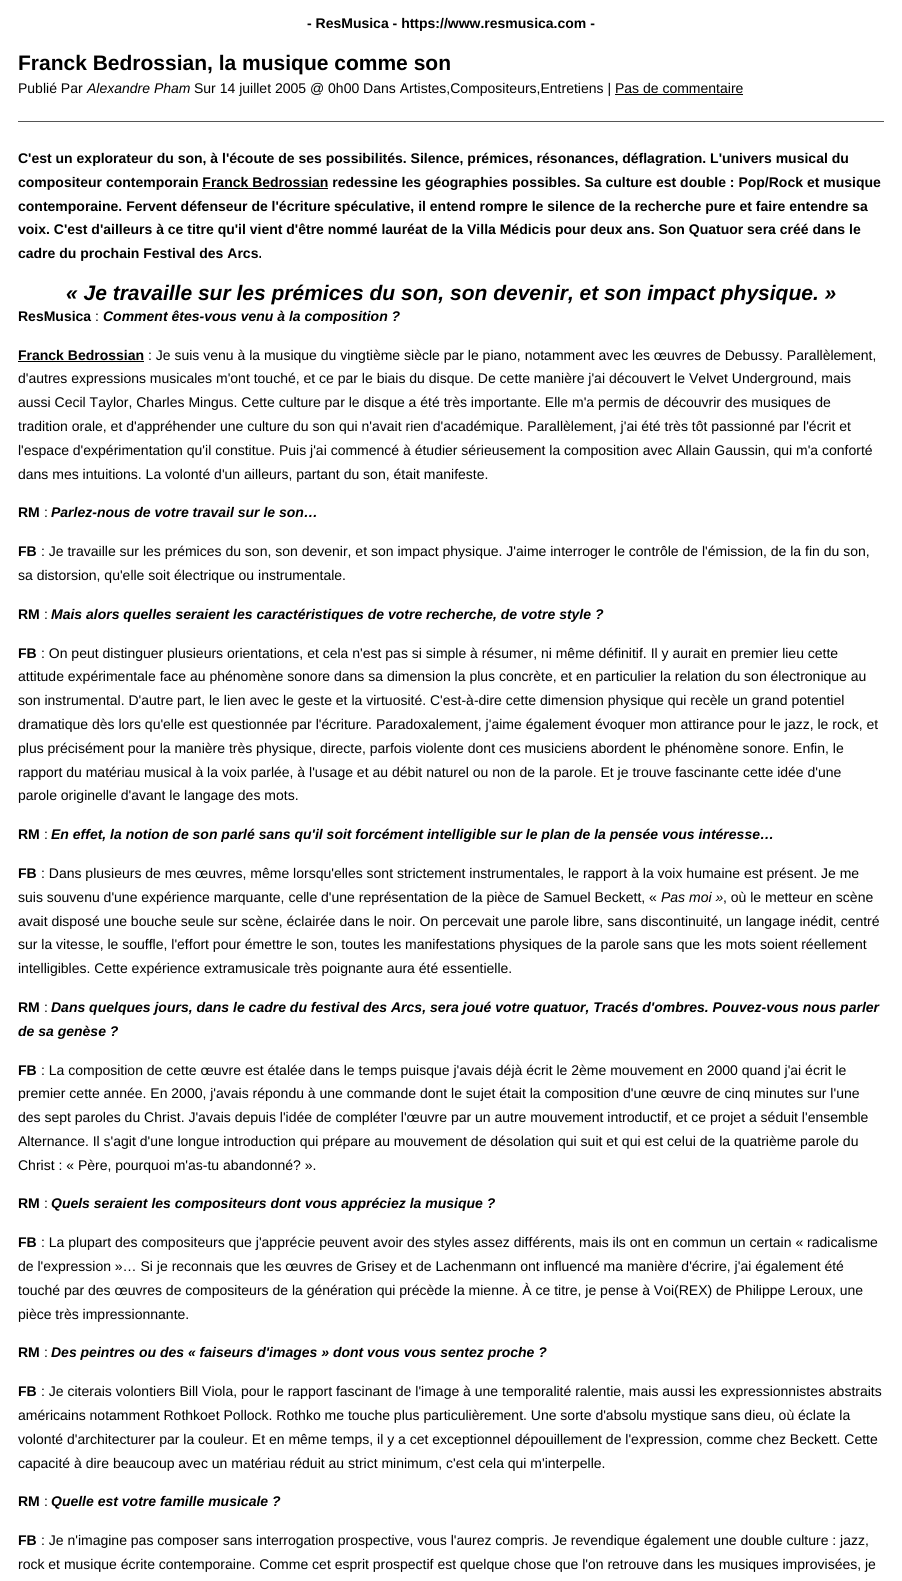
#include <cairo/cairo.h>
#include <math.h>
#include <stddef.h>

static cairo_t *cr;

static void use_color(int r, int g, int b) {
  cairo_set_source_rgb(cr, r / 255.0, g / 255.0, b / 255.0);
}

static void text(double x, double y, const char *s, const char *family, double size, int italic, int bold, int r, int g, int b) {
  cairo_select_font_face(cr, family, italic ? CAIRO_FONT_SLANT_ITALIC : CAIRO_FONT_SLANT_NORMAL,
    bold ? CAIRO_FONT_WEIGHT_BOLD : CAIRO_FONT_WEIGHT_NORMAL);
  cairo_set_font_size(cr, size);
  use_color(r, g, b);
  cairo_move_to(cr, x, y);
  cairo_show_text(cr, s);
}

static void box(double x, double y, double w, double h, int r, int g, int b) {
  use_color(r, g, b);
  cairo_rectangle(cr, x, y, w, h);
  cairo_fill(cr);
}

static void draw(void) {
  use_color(255, 255, 255);
  cairo_paint(cr);
  box(18, 121, 866, 1, 85, 85, 85);
  box(615, 94, 128, 1, 0, 0, 0);
  box(202, 188, 126, 1, 0, 0, 0);
  box(18, 361, 126, 1, 0, 0, 0);
  text(307, 28, "- ResMusica - https://www.resmusica.com -", "Liberation Sans", 14, 0, 1, 0, 0, 0);
  text(18, 70, "Franck Bedrossian, la musique comme son", "Liberation Sans", 21, 0, 1, 0, 0, 0);
  text(18, 93, "Publié Par", "Liberation Sans", 14, 0, 0, 0, 0, 0);
  text(87, 93, "Alexandre Pham", "Liberation Sans", 14, 1, 0, 0, 0, 0);
  text(194, 93, "Sur 14 juillet 2005 @ 0h00 Dans Artistes,Compositeurs,Entretiens | Pas de commentaire", "Liberation Sans", 14, 0, 0, 0, 0, 0);
  text(18, 163, "C'est un explorateur du son, à l'écoute de ses possibilités. Silence, prémices, résonances, déflagration. L'univers musical du", "Liberation Sans", 14, 0, 1, 0, 0, 0);
  text(18, 187, "compositeur contemporain Franck Bedrossian redessine les géographies possibles. Sa culture est double : Pop/Rock et musique", "Liberation Sans", 14, 0, 1, 0, 0, 0);
  text(18, 211, "contemporaine. Fervent défenseur de l'écriture spéculative, il entend rompre le silence de la recherche pure et faire entendre sa", "Liberation Sans", 14, 0, 1, 0, 0, 0);
  text(18, 234, "voix. C'est d'ailleurs à ce titre qu'il vient d'être nommé lauréat de la Villa Médicis pour deux ans. Son Quatuor sera créé dans le", "Liberation Sans", 14, 0, 1, 0, 0, 0);
  text(18, 258, "cadre du prochain Festival des Arcs.", "Liberation Sans", 14, 0, 1, 0, 0, 0);
  text(66, 300, "« Je travaille sur les prémices du son, son devenir, et son impact physique. »", "Liberation Sans", 21, 1, 1, 0, 0, 0);
  text(18, 321, "ResMusica", "Liberation Sans", 14, 0, 1, 0, 0, 0);
  text(95, 321, ":", "Liberation Sans", 14, 0, 0, 0, 0, 0);
  text(103, 321, "Comment êtes-vous venu à la composition ?", "Liberation Sans", 14, 1, 1, 0, 0, 0);
  text(18, 360, "Franck Bedrossian", "Liberation Sans", 14, 0, 1, 0, 0, 0);
  text(148, 360, ": Je suis venu à la musique du vingtième siècle par le piano, notamment avec les œuvres de Debussy. Parallèlement,", "Liberation Sans", 14, 0, 0, 0, 0, 0);
  text(18, 383, "d'autres expressions musicales m'ont touché, et ce par le biais du disque. De cette manière j'ai découvert le Velvet Underground, mais", "Liberation Sans", 14, 0, 0, 0, 0, 0);
  text(18, 407, "aussi Cecil Taylor, Charles Mingus. Cette culture par le disque a été très importante. Elle m'a permis de découvrir des musiques de", "Liberation Sans", 14, 0, 0, 0, 0, 0);
  text(18, 431, "tradition orale, et d'appréhender une culture du son qui n'avait rien d'académique. Parallèlement, j'ai été très tôt passionné par l'écrit et", "Liberation Sans", 14, 0, 0, 0, 0, 0);
  text(18, 455, "l'espace d'expérimentation qu'il constitue. Puis j'ai commencé à étudier sérieusement la composition avec Allain Gaussin, qui m'a conforté", "Liberation Sans", 14, 0, 0, 0, 0, 0);
  text(18, 479, "dans mes intuitions. La volonté d'un ailleurs, partant du son, était manifeste.", "Liberation Sans", 14, 0, 0, 0, 0, 0);
  text(18, 517, "RM", "Liberation Sans", 14, 0, 1, 0, 0, 0);
  text(44, 517, ":", "Liberation Sans", 14, 0, 0, 0, 0, 0);
  text(51, 517, "Parlez-nous de votre travail sur le son…", "Liberation Sans", 14, 1, 1, 0, 0, 0);
  text(18, 556, "FB", "Liberation Sans", 14, 0, 1, 0, 0, 0);
  text(41, 556, ": Je travaille sur les prémices du son, son devenir, et son impact physique. J'aime interroger le contrôle de l'émission, de la fin du son,", "Liberation Sans", 14, 0, 0, 0, 0, 0);
  text(18, 580, "sa distorsion, qu'elle soit électrique ou instrumentale.", "Liberation Sans", 14, 0, 0, 0, 0, 0);
  text(18, 619, "RM", "Liberation Sans", 14, 0, 1, 0, 0, 0);
  text(44, 619, ":", "Liberation Sans", 14, 0, 0, 0, 0, 0);
  text(51, 619, "Mais alors quelles seraient les caractéristiques de votre recherche, de votre style ?", "Liberation Sans", 14, 1, 1, 0, 0, 0);
  text(18, 658, "FB", "Liberation Sans", 14, 0, 1, 0, 0, 0);
  text(41, 658, ": On peut distinguer plusieurs orientations, et cela n'est pas si simple à résumer, ni même définitif. Il y aurait en premier lieu cette", "Liberation Sans", 14, 0, 0, 0, 0, 0);
  text(18, 681, "attitude expérimentale face au phénomène sonore dans sa dimension la plus concrète, et en particulier la relation du son électronique au", "Liberation Sans", 14, 0, 0, 0, 0, 0);
  text(18, 705, "son instrumental. D'autre part, le lien avec le geste et la virtuosité. C'est-à-dire cette dimension physique qui recèle un grand potentiel", "Liberation Sans", 14, 0, 0, 0, 0, 0);
  text(18, 729, "dramatique dès lors qu'elle est questionnée par l'écriture. Paradoxalement, j'aime également évoquer mon attirance pour le jazz, le rock, et", "Liberation Sans", 14, 0, 0, 0, 0, 0);
  text(18, 753, "plus précisément pour la manière très physique, directe, parfois violente dont ces musiciens abordent le phénomène sonore. Enfin, le", "Liberation Sans", 14, 0, 0, 0, 0, 0);
  text(18, 777, "rapport du matériau musical à la voix parlée, à l'usage et au débit naturel ou non de la parole. Et je trouve fascinante cette idée d'une", "Liberation Sans", 14, 0, 0, 0, 0, 0);
  text(18, 800, "parole originelle d'avant le langage des mots.", "Liberation Sans", 14, 0, 0, 0, 0, 0);
  text(18, 839, "RM", "Liberation Sans", 14, 0, 1, 0, 0, 0);
  text(44, 839, ":", "Liberation Sans", 14, 0, 0, 0, 0, 0);
  text(51, 839, "En effet, la notion de son parlé sans qu'il soit forcément intelligible sur le plan de la pensée vous intéresse…", "Liberation Sans", 14, 1, 1, 0, 0, 0);
  text(18, 878, "FB", "Liberation Sans", 14, 0, 1, 0, 0, 0);
  text(41, 878, ": Dans plusieurs de mes œuvres, même lorsqu'elles sont strictement instrumentales, le rapport à la voix humaine est présent. Je me", "Liberation Sans", 14, 0, 0, 0, 0, 0);
  text(18, 902, "suis souvenu d'une expérience marquante, celle d'une représentation de la pièce de Samuel Beckett, «", "Liberation Sans", 14, 0, 0, 0, 0, 0);
  text(661, 902, "Pas moi »", "Liberation Sans", 14, 1, 0, 0, 0, 0);
  text(723, 902, ", où le metteur en scène", "Liberation Sans", 14, 0, 0, 0, 0, 0);
  text(18, 926, "avait disposé une bouche seule sur scène, éclairée dans le noir. On percevait une parole libre, sans discontinuité, un langage inédit, centré", "Liberation Sans", 14, 0, 0, 0, 0, 0);
  text(18, 949, "sur la vitesse, le souffle, l'effort pour émettre le son, toutes les manifestations physiques de la parole sans que les mots soient réellement", "Liberation Sans", 14, 0, 0, 0, 0, 0);
  text(18, 973, "intelligibles. Cette expérience extramusicale très poignante aura été essentielle.", "Liberation Sans", 14, 0, 0, 0, 0, 0);
  text(18, 1012, "RM", "Liberation Sans", 14, 0, 1, 0, 0, 0);
  text(44, 1012, ":", "Liberation Sans", 14, 0, 0, 0, 0, 0);
  text(51, 1012, "Dans quelques jours, dans le cadre du festival des Arcs, sera joué votre quatuor, Tracés d'ombres. Pouvez-vous nous parler", "Liberation Sans", 14, 1, 1, 0, 0, 0);
  text(18, 1036, "de sa genèse ?", "Liberation Sans", 14, 1, 1, 0, 0, 0);
  text(18, 1075, "FB", "Liberation Sans", 14, 0, 1, 0, 0, 0);
  text(41, 1075, ": La composition de cette œuvre est étalée dans le temps puisque j'avais déjà écrit le 2ème mouvement en 2000 quand j'ai écrit le", "Liberation Sans", 14, 0, 0, 0, 0, 0);
  text(18, 1098, "premier cette année. En 2000, j'avais répondu à une commande dont le sujet était la composition d'une œuvre de cinq minutes sur l'une", "Liberation Sans", 14, 0, 0, 0, 0, 0);
  text(18, 1122, "des sept paroles du Christ. J'avais depuis l'idée de compléter l'œuvre par un autre mouvement introductif, et ce projet a séduit l'ensemble", "Liberation Sans", 14, 0, 0, 0, 0, 0);
  text(18, 1146, "Alternance. Il s'agit d'une longue introduction qui prépare au mouvement de désolation qui suit et qui est celui de la quatrième parole du", "Liberation Sans", 14, 0, 0, 0, 0, 0);
  text(18, 1170, "Christ : « Père, pourquoi m'as-tu abandonné? ».", "Liberation Sans", 14, 0, 0, 0, 0, 0);
  text(18, 1208, "RM", "Liberation Sans", 14, 0, 1, 0, 0, 0);
  text(44, 1208, ":", "Liberation Sans", 14, 0, 0, 0, 0, 0);
  text(51, 1208, "Quels seraient les compositeurs dont vous appréciez la musique ?", "Liberation Sans", 14, 1, 1, 0, 0, 0);
  text(18, 1247, "FB", "Liberation Sans", 14, 0, 1, 0, 0, 0);
  text(41, 1247, ": La plupart des compositeurs que j'apprécie peuvent avoir des styles assez différents, mais ils ont en commun un certain « radicalisme", "Liberation Sans", 14, 0, 0, 0, 0, 0);
  text(18, 1271, "de l'expression »… Si je reconnais que les œuvres de Grisey et de Lachenmann ont influencé ma manière d'écrire, j'ai également été", "Liberation Sans", 14, 0, 0, 0, 0, 0);
  text(18, 1295, "touché par des œuvres de compositeurs de la génération qui précède la mienne. À ce titre, je pense à Voi(REX) de Philippe Leroux, une", "Liberation Sans", 14, 0, 0, 0, 0, 0);
  text(18, 1319, "pièce très impressionnante.", "Liberation Sans", 14, 0, 0, 0, 0, 0);
  text(18, 1357, "RM", "Liberation Sans", 14, 0, 1, 0, 0, 0);
  text(44, 1357, ":", "Liberation Sans", 14, 0, 0, 0, 0, 0);
  text(51, 1357, "Des peintres ou des « faiseurs d'images » dont vous vous sentez proche ?", "Liberation Sans", 14, 1, 1, 0, 0, 0);
  text(18, 1396, "FB", "Liberation Sans", 14, 0, 1, 0, 0, 0);
  text(41, 1396, ": Je citerais volontiers Bill Viola, pour le rapport fascinant de l'image à une temporalité ralentie, mais aussi les expressionnistes abstraits", "Liberation Sans", 14, 0, 0, 0, 0, 0);
  text(18, 1420, "américains notamment Rothkoet Pollock. Rothko me touche plus particulièrement. Une sorte d'absolu mystique sans dieu, où éclate la", "Liberation Sans", 14, 0, 0, 0, 0, 0);
  text(18, 1444, "volonté d'architecturer par la couleur. Et en même temps, il y a cet exceptionnel dépouillement de l'expression, comme chez Beckett. Cette", "Liberation Sans", 14, 0, 0, 0, 0, 0);
  text(18, 1468, "capacité à dire beaucoup avec un matériau réduit au strict minimum, c'est cela qui m'interpelle.", "Liberation Sans", 14, 0, 0, 0, 0, 0);
  text(18, 1506, "RM", "Liberation Sans", 14, 0, 1, 0, 0, 0);
  text(44, 1506, ":", "Liberation Sans", 14, 0, 0, 0, 0, 0);
  text(51, 1506, "Quelle est votre famille musicale ?", "Liberation Sans", 14, 1, 1, 0, 0, 0);
  text(18, 1545, "FB", "Liberation Sans", 14, 0, 1, 0, 0, 0);
  text(41, 1545, ": Je n'imagine pas composer sans interrogation prospective, vous l'aurez compris. Je revendique également une double culture : jazz,", "Liberation Sans", 14, 0, 0, 0, 0, 0);
  text(18, 1569, "rock et musique écrite contemporaine. Comme cet esprit prospectif est quelque chose que l'on retrouve dans les musiques improvisées, je", "Liberation Sans", 14, 0, 0, 0, 0, 0);
}

int main(void) {
  cairo_surface_t *surface = cairo_image_surface_create(CAIRO_FORMAT_RGB24, 902, 1581);
  cr = cairo_create(surface);
  cairo_font_options_t *options = cairo_font_options_create();
  cairo_font_options_set_hint_metrics(options, CAIRO_HINT_METRICS_OFF);
  cairo_font_options_set_hint_style(options, CAIRO_HINT_STYLE_NONE);
  cairo_set_font_options(cr, options);
  cairo_set_miter_limit(cr, 4);
  draw();
  cairo_surface_write_to_png(surface, "out.png");
  cairo_font_options_destroy(options);
  cairo_destroy(cr);
  cairo_surface_destroy(surface);
  return 0;
}
